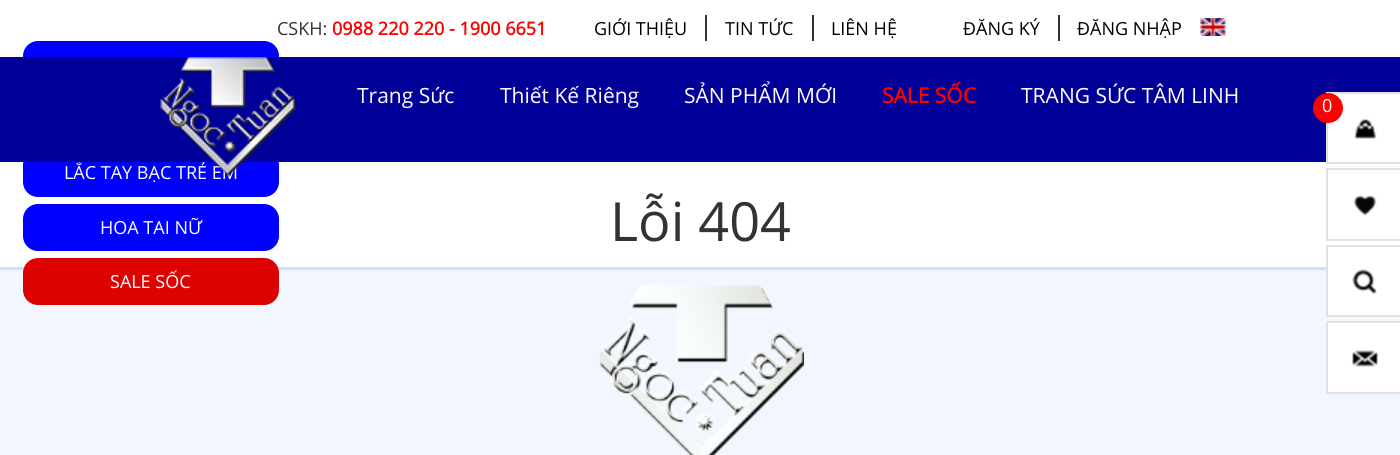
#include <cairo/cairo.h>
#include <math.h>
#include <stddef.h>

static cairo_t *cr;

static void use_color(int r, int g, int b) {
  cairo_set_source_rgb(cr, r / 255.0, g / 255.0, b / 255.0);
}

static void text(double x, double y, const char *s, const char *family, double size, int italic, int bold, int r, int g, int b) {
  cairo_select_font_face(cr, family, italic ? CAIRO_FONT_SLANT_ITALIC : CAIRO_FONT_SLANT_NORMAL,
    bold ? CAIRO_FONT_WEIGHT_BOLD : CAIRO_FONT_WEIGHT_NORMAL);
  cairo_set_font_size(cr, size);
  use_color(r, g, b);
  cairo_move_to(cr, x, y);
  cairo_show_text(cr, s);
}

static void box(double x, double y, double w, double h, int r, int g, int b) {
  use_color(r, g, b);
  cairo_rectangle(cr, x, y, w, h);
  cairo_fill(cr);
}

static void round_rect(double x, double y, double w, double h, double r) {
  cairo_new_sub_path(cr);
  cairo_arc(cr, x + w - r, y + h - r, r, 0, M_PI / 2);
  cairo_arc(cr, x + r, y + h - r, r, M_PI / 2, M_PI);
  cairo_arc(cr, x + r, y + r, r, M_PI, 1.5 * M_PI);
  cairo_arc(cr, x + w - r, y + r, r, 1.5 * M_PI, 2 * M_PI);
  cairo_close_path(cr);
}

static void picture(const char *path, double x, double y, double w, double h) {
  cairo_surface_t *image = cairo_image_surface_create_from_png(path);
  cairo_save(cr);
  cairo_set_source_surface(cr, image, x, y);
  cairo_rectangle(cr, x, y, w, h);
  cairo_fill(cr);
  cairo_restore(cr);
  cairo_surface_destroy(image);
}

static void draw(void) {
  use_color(255, 255, 255);
  cairo_paint(cr);
  box(705, 15, 2, 26, 51, 51, 51);
  box(812, 15, 2, 26, 51, 51, 51);
  box(1058, 15, 2, 26, 51, 51, 51);
  picture("img_01.png", 1200, 18, 26, 18);
  box(1326, 162, 74, 2, 225, 225, 225);
  box(1326, 168, 74, 2, 225, 225, 225);
  box(1326, 239, 74, 2, 225, 225, 225);
  box(1326, 168, 2, 72, 225, 225, 225);
  picture("img_04.png", 1353, 195, 24, 21);
  box(0, 270, 1400, 185, 242, 247, 255);
  box(1328, 270, 72, 45, 255, 255, 255);
  box(1326, 245, 74, 2, 225, 225, 225);
  box(1326, 315, 74, 2, 225, 225, 225);
  box(1326, 245, 2, 72, 225, 225, 225);
  picture("img_05.png", 1352, 269, 25, 26);
  box(1328, 323, 72, 69, 255, 255, 255);
  box(1326, 321, 74, 2, 225, 225, 225);
  box(1326, 392, 74, 2, 225, 225, 225);
  box(1326, 321, 2, 72, 225, 225, 225);
  picture("img_06.png", 1351, 350, 28, 17);
  use_color(0, 0, 255);
  round_rect(23, 41, 256, 46, 15);
  cairo_fill(cr);
  round_rect(23, 150, 256, 47, 15);
  cairo_fill(cr);
  round_rect(23, 204, 256, 47, 15);
  cairo_fill(cr);
  box(0, 267, 1326, 3, 205, 224, 255);
  use_color(222, 3, 3);
  round_rect(23, 258, 256, 47, 15);
  cairo_fill(cr);
  picture("img_07.png", 598, 285, 206, 170);
  text(277, 35, "CSKH:", "Open Sans", 18, 0, 0, 51, 51, 51);
  text(332, 35, "0988 220 220 - 1900 6651", "Open Sans", 18, 0, 1, 255, 0, 0);
  text(594, 35, "GIỚI THIỆU", "Open Sans", 18, 0, 0, 0, 0, 0);
  text(725, 35, "TIN TỨC", "Open Sans", 18, 0, 0, 0, 0, 0);
  text(831, 35, "LIÊN HỆ", "Open Sans", 18, 0, 0, 0, 0, 0);
  text(963, 35, "ĐĂNG KÝ", "Open Sans", 18, 0, 0, 0, 0, 0);
  text(1077, 35, "ĐĂNG NHẬP", "Open Sans", 18, 0, 0, 0, 0, 0);
  text(64, 179, "LẮC TAY BẠC TRẺ EM", "Open Sans", 18, 0, 0, 255, 255, 255);
  box(0, 57, 1400, 105, 0, 0, 152);
  box(1326, 92, 74, 2, 225, 225, 225);
  box(1326, 92, 2, 72, 225, 225, 225);
  box(1328, 94, 72, 68, 255, 255, 255);
  use_color(255, 0, 0);
  cairo_new_path(cr);
  cairo_arc(cr, 1328, 108, 15, 0, 2 * M_PI);
  cairo_fill(cr);
  text(1322, 112, "0", "Open Sans", 18, 0, 0, 255, 255, 255);
  picture("img_03.png", 1354, 119, 23, 20);
  picture("img_02.png", 160, 57, 136, 121);
  text(1021, 103, "TRANG SỨC TÂM LINH", "Open Sans", 21, 0, 0, 255, 255, 255);
  text(882, 103, "SALE SỐC", "Open Sans", 21, 0, 1, 255, 0, 0);
  text(684, 103, "SẢN PHẨM MỚI", "Open Sans", 21, 0, 0, 255, 255, 255);
  text(500, 103, "Thiết Kế Riêng", "Open Sans", 21, 0, 0, 255, 255, 255);
  text(357, 103, "Trang Sức", "Open Sans", 21, 0, 0, 255, 255, 255);
  text(100, 234, "HOA TAI NỮ", "Open Sans", 18, 0, 0, 255, 255, 255);
  text(110, 288, "SALE SỐC", "Open Sans", 18, 0, 0, 255, 255, 255);
  text(610, 241, "Lỗi 404", "Open Sans", 54, 0, 0, 51, 51, 51);
}

int main(void) {
  cairo_surface_t *surface = cairo_image_surface_create(CAIRO_FORMAT_RGB24, 1400, 455);
  cr = cairo_create(surface);
  cairo_font_options_t *options = cairo_font_options_create();
  cairo_font_options_set_hint_metrics(options, CAIRO_HINT_METRICS_OFF);
  cairo_font_options_set_hint_style(options, CAIRO_HINT_STYLE_NONE);
  cairo_set_font_options(cr, options);
  cairo_set_miter_limit(cr, 4);
  draw();
  cairo_surface_write_to_png(surface, "out.png");
  cairo_font_options_destroy(options);
  cairo_destroy(cr);
  cairo_surface_destroy(surface);
  return 0;
}
